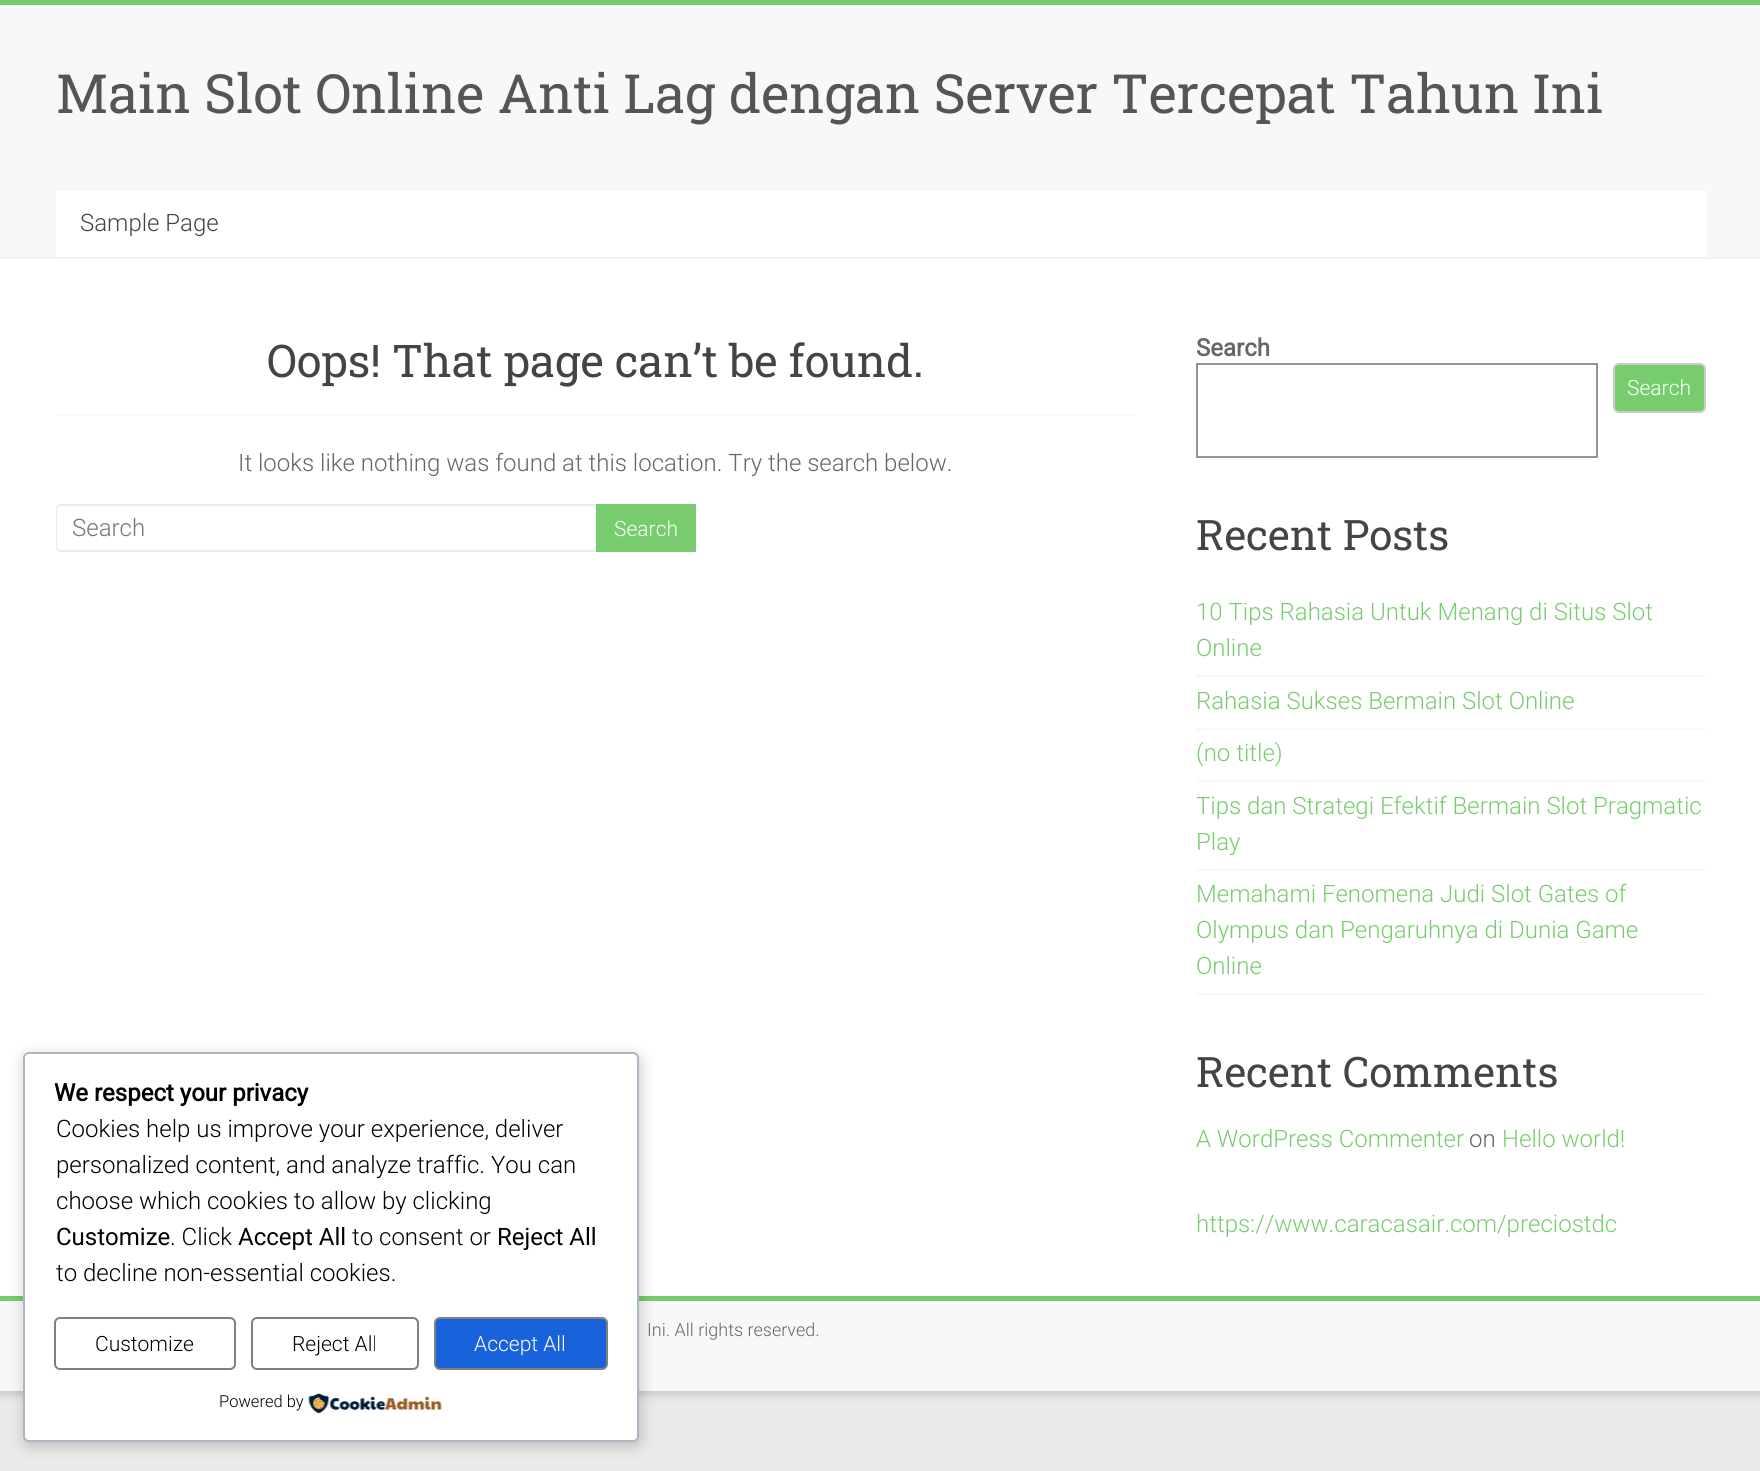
#include <cairo/cairo.h>
#include <math.h>
#include <stddef.h>

static cairo_t *cr;

static void use_color(int r, int g, int b) {
  cairo_set_source_rgb(cr, r / 255.0, g / 255.0, b / 255.0);
}

static void text(double x, double y, const char *s, const char *family, double size, int italic, int bold, int r, int g, int b) {
  cairo_select_font_face(cr, family, italic ? CAIRO_FONT_SLANT_ITALIC : CAIRO_FONT_SLANT_NORMAL,
    bold ? CAIRO_FONT_WEIGHT_BOLD : CAIRO_FONT_WEIGHT_NORMAL);
  cairo_set_font_size(cr, size);
  use_color(r, g, b);
  cairo_move_to(cr, x, y);
  cairo_show_text(cr, s);
}

static void box(double x, double y, double w, double h, int r, int g, int b) {
  use_color(r, g, b);
  cairo_rectangle(cr, x, y, w, h);
  cairo_fill(cr);
}

static void round_rect(double x, double y, double w, double h, double r) {
  cairo_new_sub_path(cr);
  cairo_arc(cr, x + w - r, y + h - r, r, 0, M_PI / 2);
  cairo_arc(cr, x + r, y + h - r, r, M_PI / 2, M_PI);
  cairo_arc(cr, x + r, y + r, r, M_PI, 1.5 * M_PI);
  cairo_arc(cr, x + w - r, y + r, r, 1.5 * M_PI, 2 * M_PI);
  cairo_close_path(cr);
}

static void shadow(double x, double y, double w, double h, double r, double blur, double alpha) {
  cairo_push_group_with_content(cr, CAIRO_CONTENT_ALPHA);
  cairo_set_operator(cr, CAIRO_OPERATOR_SOURCE);
  for (int i = 15; i >= -15 && fmin(w, h) + blur * i / 3 > 0; i -= 2) {
    double e = blur * i / 6;
    cairo_set_source_rgba(cr, 0, 0, 0, alpha * erfc((i - 1) / 8.5) / 2);
    round_rect(x - e, y - e, w + 2 * e, h + 2 * e, fmax(0, fmin(r + e + blur * .6, fmin(w, h) / 2 + e)));
    cairo_fill(cr);
  }
  cairo_pattern_t *soft = cairo_pop_group(cr);
  cairo_mask(cr, soft);
  cairo_pattern_destroy(soft);
}

static void picture(const char *path, double x, double y, double w, double h) {
  cairo_surface_t *image = cairo_image_surface_create_from_png(path);
  cairo_save(cr);
  cairo_set_source_surface(cr, image, x, y);
  cairo_rectangle(cr, x, y, w, h);
  cairo_fill(cr);
  cairo_restore(cr);
  cairo_surface_destroy(image);
}

static void draw(void) {
  use_color(234, 234, 234);
  cairo_paint(cr);
  use_color(100, 100, 100);
  shadow(0, 3, 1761, 1391, 0, 4.5, 0.3);
  box(0, 259, 1760, 1037, 255, 255, 255);
  box(0, 0, 1760, 5, 119, 204, 109);
  box(0, 5, 1760, 252, 248, 248, 248);
  box(0, 257, 1760, 2, 242, 242, 242);
  box(56, 191, 1650, 66, 255, 255, 255);
  box(56, 414, 1080, 2, 248, 248, 248);
  use_color(234, 234, 234);
  cairo_set_fill_rule(cr, CAIRO_FILL_RULE_EVEN_ODD);
  cairo_new_path(cr);
  cairo_move_to(cr, 60, 504);
  cairo_line_to(cr, 596, 504);
  cairo_line_to(cr, 596, 552);
  cairo_line_to(cr, 60, 552);
  cairo_curve_to(cr, 58, 552, 56, 550, 56, 548);
  cairo_line_to(cr, 56, 508);
  cairo_curve_to(cr, 56, 506, 58, 504, 60, 504);
  cairo_close_path(cr);
  cairo_move_to(cr, 60, 506);
  cairo_line_to(cr, 596, 506);
  cairo_line_to(cr, 596, 550);
  cairo_line_to(cr, 60, 550);
  cairo_curve_to(cr, 58, 550, 57, 549, 57, 548);
  cairo_line_to(cr, 57, 508);
  cairo_curve_to(cr, 57, 507, 58, 506, 60, 506);
  cairo_close_path(cr);
  cairo_fill(cr);
  box(596, 504, 100, 48, 119, 204, 109);
  cairo_rectangle(cr, 1197, 364, 400, 93);
  use_color(148, 148, 148);
  cairo_stroke(cr);
  use_color(119, 204, 109);
  round_rect(1614, 364, 91, 48, 5);
  cairo_fill_preserve(cr);
  use_color(204, 204, 204);
  cairo_stroke(cr);
  box(1196, 675, 510, 2, 248, 248, 248);
  box(1196, 728, 510, 2, 248, 248, 248);
  box(1196, 780, 510, 2, 248, 248, 248);
  box(1196, 869, 510, 2, 248, 248, 248);
  box(1196, 993, 510, 2, 248, 248, 248);
  box(0, 1301, 1760, 90, 248, 248, 248);
  box(0, 1296, 1760, 5, 119, 204, 109);
  use_color(0, 0, 0);
  shadow(24, 1056, 617, 390, 6, 7.5, 0.2);
  use_color(255, 255, 255);
  round_rect(24, 1053, 614, 388, 5);
  cairo_fill_preserve(cr);
  use_color(171, 184, 195);
  cairo_stroke(cr);
  round_rect(55, 1318, 180, 51, 5);
  use_color(128, 128, 128);
  cairo_stroke(cr);
  round_rect(252, 1318, 166, 51, 5);
  cairo_stroke(cr);
  use_color(24, 99, 220);
  round_rect(435, 1318, 172, 51, 5);
  cairo_fill_preserve(cr);
  use_color(128, 128, 128);
  cairo_stroke(cr);
  picture("img_01.png", 308, 1393, 134, 21);
  text(56, 113, "Main Slot Online Anti Lag dengan Server Tercepat Tahun Ini", "Roboto Slab", 54, 0, 0, 85, 85, 85);
  text(80, 231, "Sample Page", "Roboto Light", 24, 0, 0, 68, 68, 68);
  text(267, 377, "Oops! That page can’t be found.", "Roboto Slab", 45, 0, 0, 68, 68, 68);
  text(238, 471, "It looks like nothing was found at this location. Try the search below.", "Roboto Light", 24, 0, 0, 102, 102, 102);
  text(72, 536, "Search", "Roboto Light", 24, 0, 0, 117, 117, 117);
  text(614, 536, "Search", "Roboto Light", 21, 0, 0, 255, 255, 255);
  text(1196, 356, "Search", "Roboto", 24, 0, 1, 102, 102, 102);
  text(1627, 395, "Search", "Roboto Light", 21, 0, 0, 255, 255, 255);
  text(1196, 550, "Recent Posts", "Roboto Slab", 42, 0, 0, 68, 68, 68);
  text(1196, 620, "10 Tips Rahasia Untuk Menang di Situs Slot", "Roboto Light", 24, 0, 0, 119, 204, 109);
  text(1196, 656, "Online", "Roboto Light", 24, 0, 0, 119, 204, 109);
  text(1196, 709, "Rahasia Sukses Bermain Slot Online", "Roboto Light", 24, 0, 0, 119, 204, 109);
  text(1196, 761, "(no title)", "Roboto Light", 24, 0, 0, 119, 204, 109);
  text(1196, 814, "Tips dan Strategi Efektif Bermain Slot Pragmatic", "Roboto Light", 24, 0, 0, 119, 204, 109);
  text(1196, 850, "Play", "Roboto Light", 24, 0, 0, 119, 204, 109);
  text(1196, 902, "Memahami Fenomena Judi Slot Gates of", "Roboto Light", 24, 0, 0, 119, 204, 109);
  text(1196, 938, "Olympus dan Pengaruhnya di Dunia Game", "Roboto Light", 24, 0, 0, 119, 204, 109);
  text(1196, 974, "Online", "Roboto Light", 24, 0, 0, 119, 204, 109);
  text(1196, 1087, "Recent Comments", "Roboto Slab", 42, 0, 0, 68, 68, 68);
  text(1196, 1147, "A WordPress Commenter", "Roboto Light", 24, 0, 0, 119, 204, 109);
  text(1469, 1147, "on", "Roboto Light", 24, 0, 0, 102, 102, 102);
  text(1502, 1147, "Hello world!", "Roboto Light", 24, 0, 0, 119, 204, 109);
  text(1196, 1232, "https://www.caracasair.com/preciostdc", "Roboto Light", 24, 0, 0, 119, 204, 109);
  text(647, 1336, "Ini. All rights reserved.", "Roboto Light", 18, 0, 0, 102, 102, 102);
  text(54, 1101, "We respect your privacy", "Roboto", 24, 0, 1, 0, 0, 0);
  text(56, 1137, "Cookies help us improve your experience, deliver", "Roboto Light", 24, 0, 0, 0, 0, 0);
  text(56, 1173, "personalized content, and analyze traffic. You can", "Roboto Light", 24, 0, 0, 0, 0, 0);
  text(56, 1209, "choose which cookies to allow by clicking", "Roboto Light", 24, 0, 0, 0, 0, 0);
  text(56, 1245, "Customize", "Roboto", 24, 0, 0, 0, 0, 0);
  text(170, 1245, ". Click", "Roboto Light", 24, 0, 0, 0, 0, 0);
  text(238, 1245, "Accept All", "Roboto", 24, 0, 0, 0, 0, 0);
  text(352, 1245, "to consent or", "Roboto Light", 24, 0, 0, 0, 0, 0);
  text(497, 1245, "Reject All", "Roboto", 24, 0, 0, 0, 0, 0);
  text(56, 1281, "to decline non-essential cookies.", "Roboto Light", 24, 0, 0, 0, 0, 0);
  text(95, 1351, "Customize", "Roboto Light", 21, 0, 0, 0, 0, 0);
  text(292, 1351, "Reject All", "Roboto Light", 21, 0, 0, 0, 0, 0);
  text(474, 1351, "Accept All", "Roboto Light", 21, 0, 0, 255, 255, 255);
  text(219, 1407, "Powered by", "Roboto Light", 16.5, 0, 0, 0, 0, 0);
}

int main(void) {
  cairo_surface_t *surface = cairo_image_surface_create(CAIRO_FORMAT_RGB24, 1760, 1471);
  cr = cairo_create(surface);
  cairo_font_options_t *options = cairo_font_options_create();
  cairo_font_options_set_hint_metrics(options, CAIRO_HINT_METRICS_OFF);
  cairo_font_options_set_hint_style(options, CAIRO_HINT_STYLE_NONE);
  cairo_set_font_options(cr, options);
  cairo_set_miter_limit(cr, 4);
  draw();
  cairo_surface_write_to_png(surface, "out.png");
  cairo_font_options_destroy(options);
  cairo_destroy(cr);
  cairo_surface_destroy(surface);
  return 0;
}
